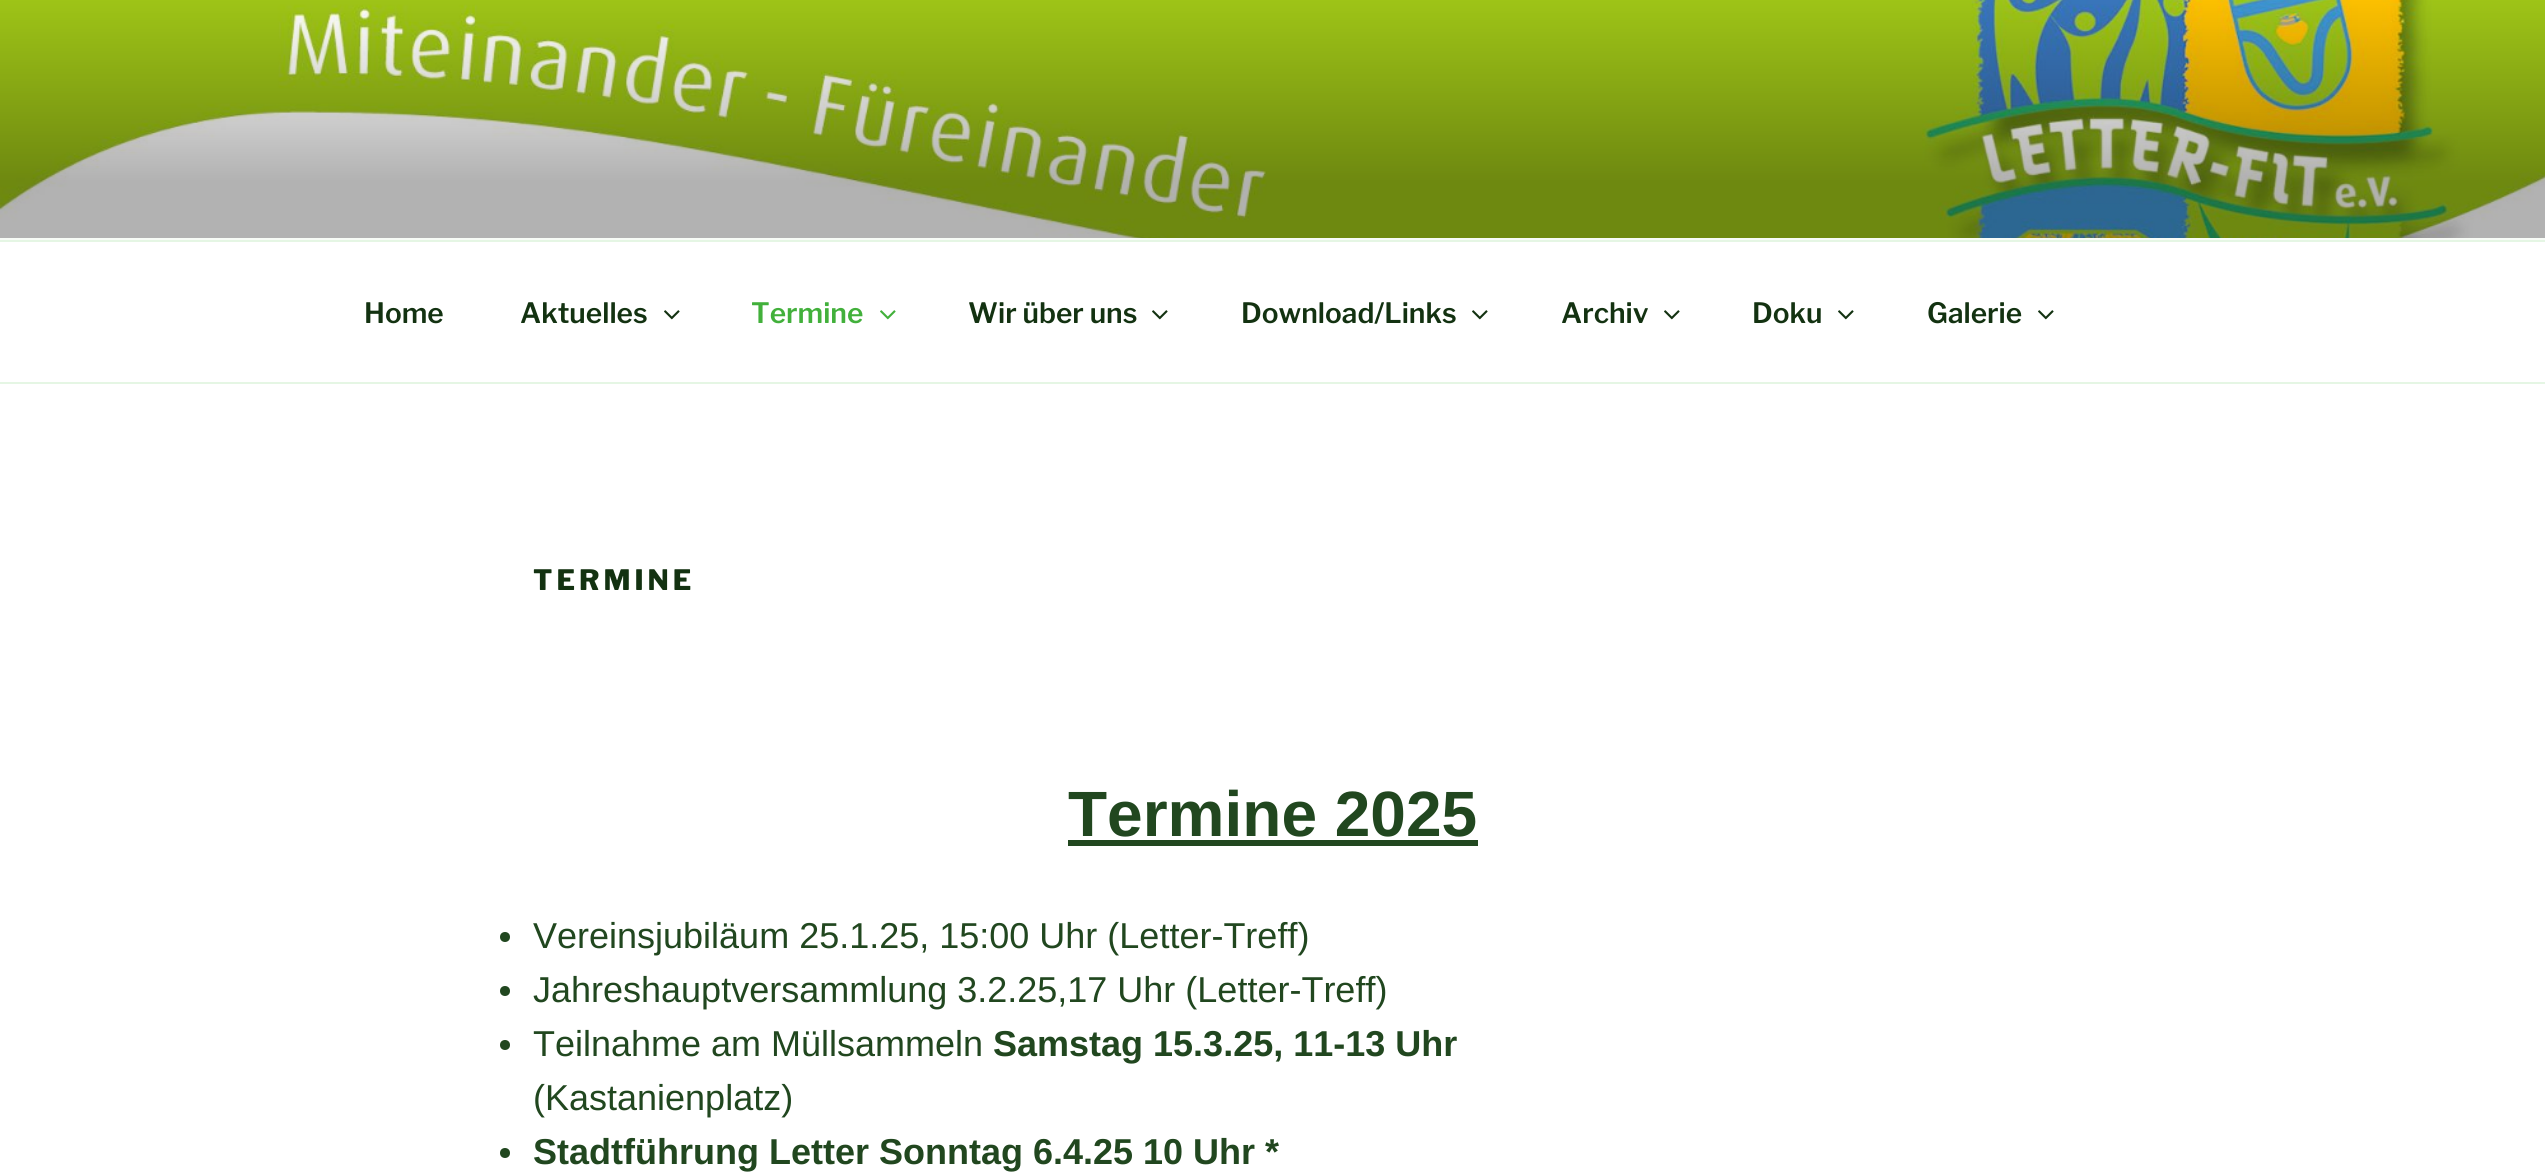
#include <cairo/cairo.h>
#include <math.h>
#include <stddef.h>

static cairo_t *cr;

static void use_color(int r, int g, int b) {
  cairo_set_source_rgb(cr, r / 255.0, g / 255.0, b / 255.0);
}

static void text(double x, double y, const char *s, const char *family, double size, int italic, int bold, int r, int g, int b) {
  cairo_select_font_face(cr, family, italic ? CAIRO_FONT_SLANT_ITALIC : CAIRO_FONT_SLANT_NORMAL,
    bold ? CAIRO_FONT_WEIGHT_BOLD : CAIRO_FONT_WEIGHT_NORMAL);
  cairo_set_font_size(cr, size);
  use_color(r, g, b);
  cairo_move_to(cr, x, y);
  cairo_show_text(cr, s);
}

static void spaced_text(double x, double y, const char *s, double letter, double word) {
  cairo_move_to(cr, x, y);
  while (*s) {
    char ch[5] = {0};
    int n = 0;
    do ch[n++] = *s++; while ((*s & 0xC0) == 0x80);
    cairo_show_text(cr, ch);
    cairo_rel_move_to(cr, letter + word * (*ch == ' '), 0);
  }
}

static void box(double x, double y, double w, double h, int r, int g, int b) {
  use_color(r, g, b);
  cairo_rectangle(cr, x, y, w, h);
  cairo_fill(cr);
}

static void picture(const char *path, double x, double y, double w, double h) {
  cairo_surface_t *image = cairo_image_surface_create_from_png(path);
  cairo_save(cr);
  cairo_set_source_surface(cr, image, x, y);
  cairo_rectangle(cr, x, y, w, h);
  cairo_fill(cr);
  cairo_restore(cr);
  cairo_surface_destroy(image);
}

static void draw(void) {
  use_color(255, 255, 255);
  cairo_paint(cr);
  box(0, 238, 2545, 2, 248, 252, 247);
  picture("img_01.png", 0, 0, 2545, 238);
  box(0, 240, 2545, 2, 229, 246, 228);
  box(0, 382, 2545, 2, 229, 246, 228);
  picture("img_02.png", 664, 310, 16, 10);
  picture("img_03.png", 880, 310, 16, 10);
  picture("img_02.png", 1152, 310, 16, 10);
  picture("img_02.png", 1472, 310, 16, 10);
  picture("img_02.png", 1664, 310, 16, 10);
  picture("img_02.png", 1838, 310, 16, 10);
  picture("img_02.png", 2038, 310, 16, 10);
  box(1068, 840, 410, 6, 33, 71, 31);
  cairo_arc(cr, 505, 937, 5, 0, 2 * M_PI);
  cairo_fill(cr);
  cairo_arc(cr, 505, 991, 5, 0, 2 * M_PI);
  cairo_fill(cr);
  cairo_arc(cr, 505, 1045, 5, 0, 2 * M_PI);
  cairo_fill(cr);
  cairo_arc(cr, 505, 1153, 5, 0, 2 * M_PI);
  cairo_fill(cr);
  text(364, 323, "Home", "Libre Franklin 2 Thin", 28, 0, 0, 19, 50, 17);
  text(520, 323, "Aktuelles", "Libre Franklin 2 Thin", 28, 0, 0, 19, 50, 17);
  text(751, 323, "Termine", "Libre Franklin 2 Thin", 28, 0, 0, 66, 176, 59);
  text(968, 323, "Wir über uns", "Libre Franklin 2 Thin", 28, 0, 0, 19, 50, 17);
  text(1241, 323, "Download/Links", "Libre Franklin 2 Thin", 28, 0, 0, 19, 50, 17);
  text(1561, 323, "Archiv", "Libre Franklin 2 Thin", 28, 0, 0, 19, 50, 17);
  text(1752, 323, "Doku", "Libre Franklin 2 Thin", 28, 0, 0, 19, 50, 17);
  text(1927, 323, "Galerie", "Libre Franklin 2 Thin", 28, 0, 0, 19, 50, 17);
  cairo_select_font_face(cr, "Libre Franklin Thin", CAIRO_FONT_SLANT_NORMAL, CAIRO_FONT_WEIGHT_NORMAL);
  spaced_text(533, 590, "TERMINE", 4, 0);
  text(1068, 836, "Termine 2025", "Liberation Sans", 64, 0, 1, 33, 71, 31);
  text(533, 948, "Vereinsjubiläum 25.1.25, 15:00 Uhr (Letter-Treff)", "Liberation Sans", 36, 0, 0, 33, 71, 31);
  text(533, 1002, "Jahreshauptversammlung 3.2.25,17 Uhr (Letter-Treff)", "Liberation Sans", 36, 0, 0, 33, 71, 31);
  text(533, 1056, "Teilnahme am Müllsammeln", "Liberation Sans", 36, 0, 0, 33, 71, 31);
  text(993, 1056, "Samstag 15.3.25, 11-13 Uhr", "Liberation Sans", 36, 0, 1, 33, 71, 31);
  text(533, 1110, "(Kastanienplatz)", "Liberation Sans", 36, 0, 0, 33, 71, 31);
  text(533, 1164, "Stadtführung Letter Sonntag 6.4.25 10 Uhr *", "Liberation Sans", 36, 0, 1, 33, 71, 31);
}

int main(void) {
  cairo_surface_t *surface = cairo_image_surface_create(CAIRO_FORMAT_RGB24, 2545, 1173);
  cr = cairo_create(surface);
  cairo_font_options_t *options = cairo_font_options_create();
  cairo_font_options_set_hint_metrics(options, CAIRO_HINT_METRICS_OFF);
  cairo_font_options_set_hint_style(options, CAIRO_HINT_STYLE_NONE);
  cairo_set_font_options(cr, options);
  cairo_set_miter_limit(cr, 4);
  draw();
  cairo_surface_write_to_png(surface, "out.png");
  cairo_font_options_destroy(options);
  cairo_destroy(cr);
  cairo_surface_destroy(surface);
  return 0;
}
